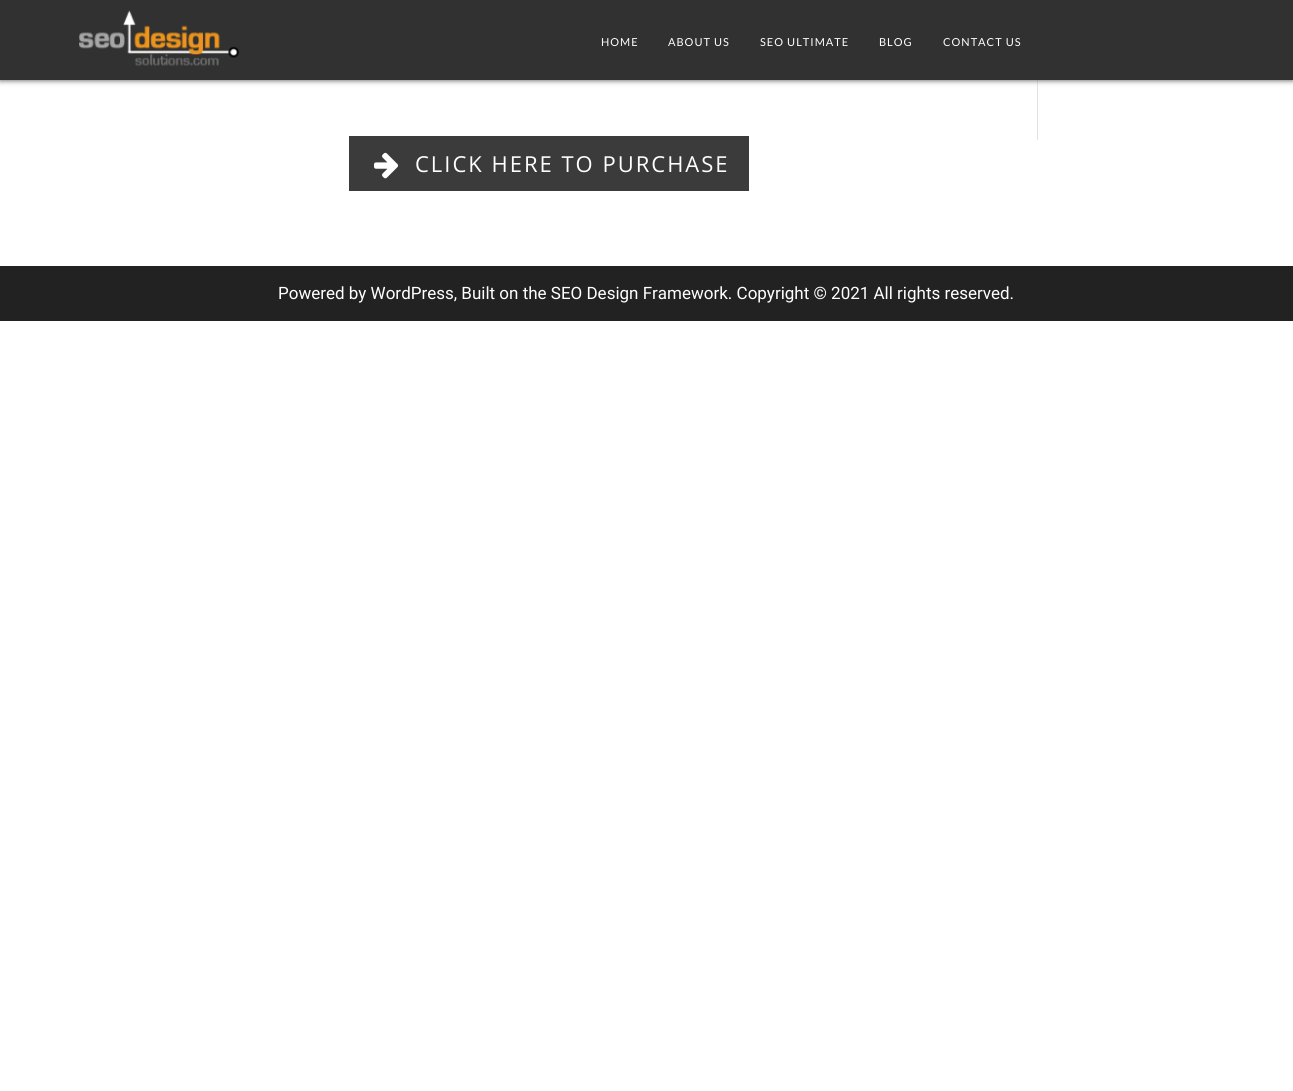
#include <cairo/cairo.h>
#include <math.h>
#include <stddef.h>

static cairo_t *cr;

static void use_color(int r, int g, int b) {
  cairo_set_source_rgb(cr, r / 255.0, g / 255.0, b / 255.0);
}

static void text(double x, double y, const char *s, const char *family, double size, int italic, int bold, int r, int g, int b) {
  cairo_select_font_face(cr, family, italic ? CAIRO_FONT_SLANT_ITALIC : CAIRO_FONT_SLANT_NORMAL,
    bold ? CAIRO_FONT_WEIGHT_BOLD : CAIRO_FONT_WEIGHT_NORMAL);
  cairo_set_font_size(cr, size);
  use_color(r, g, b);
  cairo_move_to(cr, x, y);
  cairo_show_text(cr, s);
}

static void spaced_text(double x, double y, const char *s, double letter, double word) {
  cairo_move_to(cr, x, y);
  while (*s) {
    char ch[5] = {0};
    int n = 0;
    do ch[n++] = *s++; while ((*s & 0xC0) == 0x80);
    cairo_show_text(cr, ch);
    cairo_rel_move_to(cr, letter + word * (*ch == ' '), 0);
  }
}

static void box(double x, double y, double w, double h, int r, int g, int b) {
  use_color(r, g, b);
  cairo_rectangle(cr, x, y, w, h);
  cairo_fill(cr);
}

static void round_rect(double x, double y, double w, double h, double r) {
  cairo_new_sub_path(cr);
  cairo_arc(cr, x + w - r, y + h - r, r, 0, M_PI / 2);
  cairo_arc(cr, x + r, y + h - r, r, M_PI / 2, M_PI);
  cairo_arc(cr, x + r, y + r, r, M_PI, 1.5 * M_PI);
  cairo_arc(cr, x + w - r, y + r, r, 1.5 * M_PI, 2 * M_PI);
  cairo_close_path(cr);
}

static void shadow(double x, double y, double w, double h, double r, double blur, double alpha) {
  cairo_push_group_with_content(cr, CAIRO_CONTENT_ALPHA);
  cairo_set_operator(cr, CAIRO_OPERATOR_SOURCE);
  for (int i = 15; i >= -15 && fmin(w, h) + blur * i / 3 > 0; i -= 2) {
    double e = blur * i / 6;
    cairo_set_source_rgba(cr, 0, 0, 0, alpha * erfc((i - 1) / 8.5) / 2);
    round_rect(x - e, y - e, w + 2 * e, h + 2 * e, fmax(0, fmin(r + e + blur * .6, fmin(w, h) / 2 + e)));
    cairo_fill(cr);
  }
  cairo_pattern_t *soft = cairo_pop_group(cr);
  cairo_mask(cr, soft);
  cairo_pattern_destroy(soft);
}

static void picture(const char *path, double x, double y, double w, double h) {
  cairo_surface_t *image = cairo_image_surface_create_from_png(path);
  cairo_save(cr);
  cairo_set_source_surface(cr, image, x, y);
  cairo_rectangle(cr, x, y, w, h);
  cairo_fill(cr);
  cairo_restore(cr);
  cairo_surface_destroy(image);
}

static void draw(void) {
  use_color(255, 255, 255);
  cairo_paint(cr);
  box(1037, 80, 1, 60, 226, 226, 226);
  use_color(119, 119, 119);
  shadow(0, 1, 1293, 80, 0, 2.5, 1);
  box(0, 0, 1293, 80, 49, 49, 49);
  picture("img_01.png", 79, 10, 160, 56);
  box(349, 136, 400, 55, 59, 59, 59);
  picture("img_02.png", 374, 152, 25, 27);
  box(0, 266, 1293, 55, 34, 34, 34);
  cairo_select_font_face(cr, "Lato", CAIRO_FONT_SLANT_NORMAL, CAIRO_FONT_WEIGHT_NORMAL);
  cairo_set_font_size(cr, 11);
  use_color(255, 255, 255);
  spaced_text(601, 46, "HOME", 1, 0);
  spaced_text(668, 46, "ABOUT US", 1, 0);
  spaced_text(760, 46, "SEO ULTIMATE", 1, 0);
  spaced_text(879, 46, "BLOG", 1, 0);
  spaced_text(943, 46, "CONTACT US", 1, 0);
  cairo_select_font_face(cr, "Open Sans", CAIRO_FONT_SLANT_NORMAL, CAIRO_FONT_WEIGHT_NORMAL);
  cairo_set_font_size(cr, 22);
  spaced_text(415, 172, "CLICK HERE TO PURCHASE", 2, 0);
  text(278, 299, "Powered by WordPress, Built on the SEO Design Framework. Copyright © 2021 All rights reserved.", "Roboto", 17, 0, 0, 255, 255, 255);
}

int main(void) {
  cairo_surface_t *surface = cairo_image_surface_create(CAIRO_FORMAT_RGB24, 1293, 1091);
  cr = cairo_create(surface);
  cairo_font_options_t *options = cairo_font_options_create();
  cairo_font_options_set_hint_metrics(options, CAIRO_HINT_METRICS_OFF);
  cairo_font_options_set_hint_style(options, CAIRO_HINT_STYLE_NONE);
  cairo_set_font_options(cr, options);
  cairo_set_miter_limit(cr, 4);
  draw();
  cairo_surface_write_to_png(surface, "out.png");
  cairo_font_options_destroy(options);
  cairo_destroy(cr);
  cairo_surface_destroy(surface);
  return 0;
}
